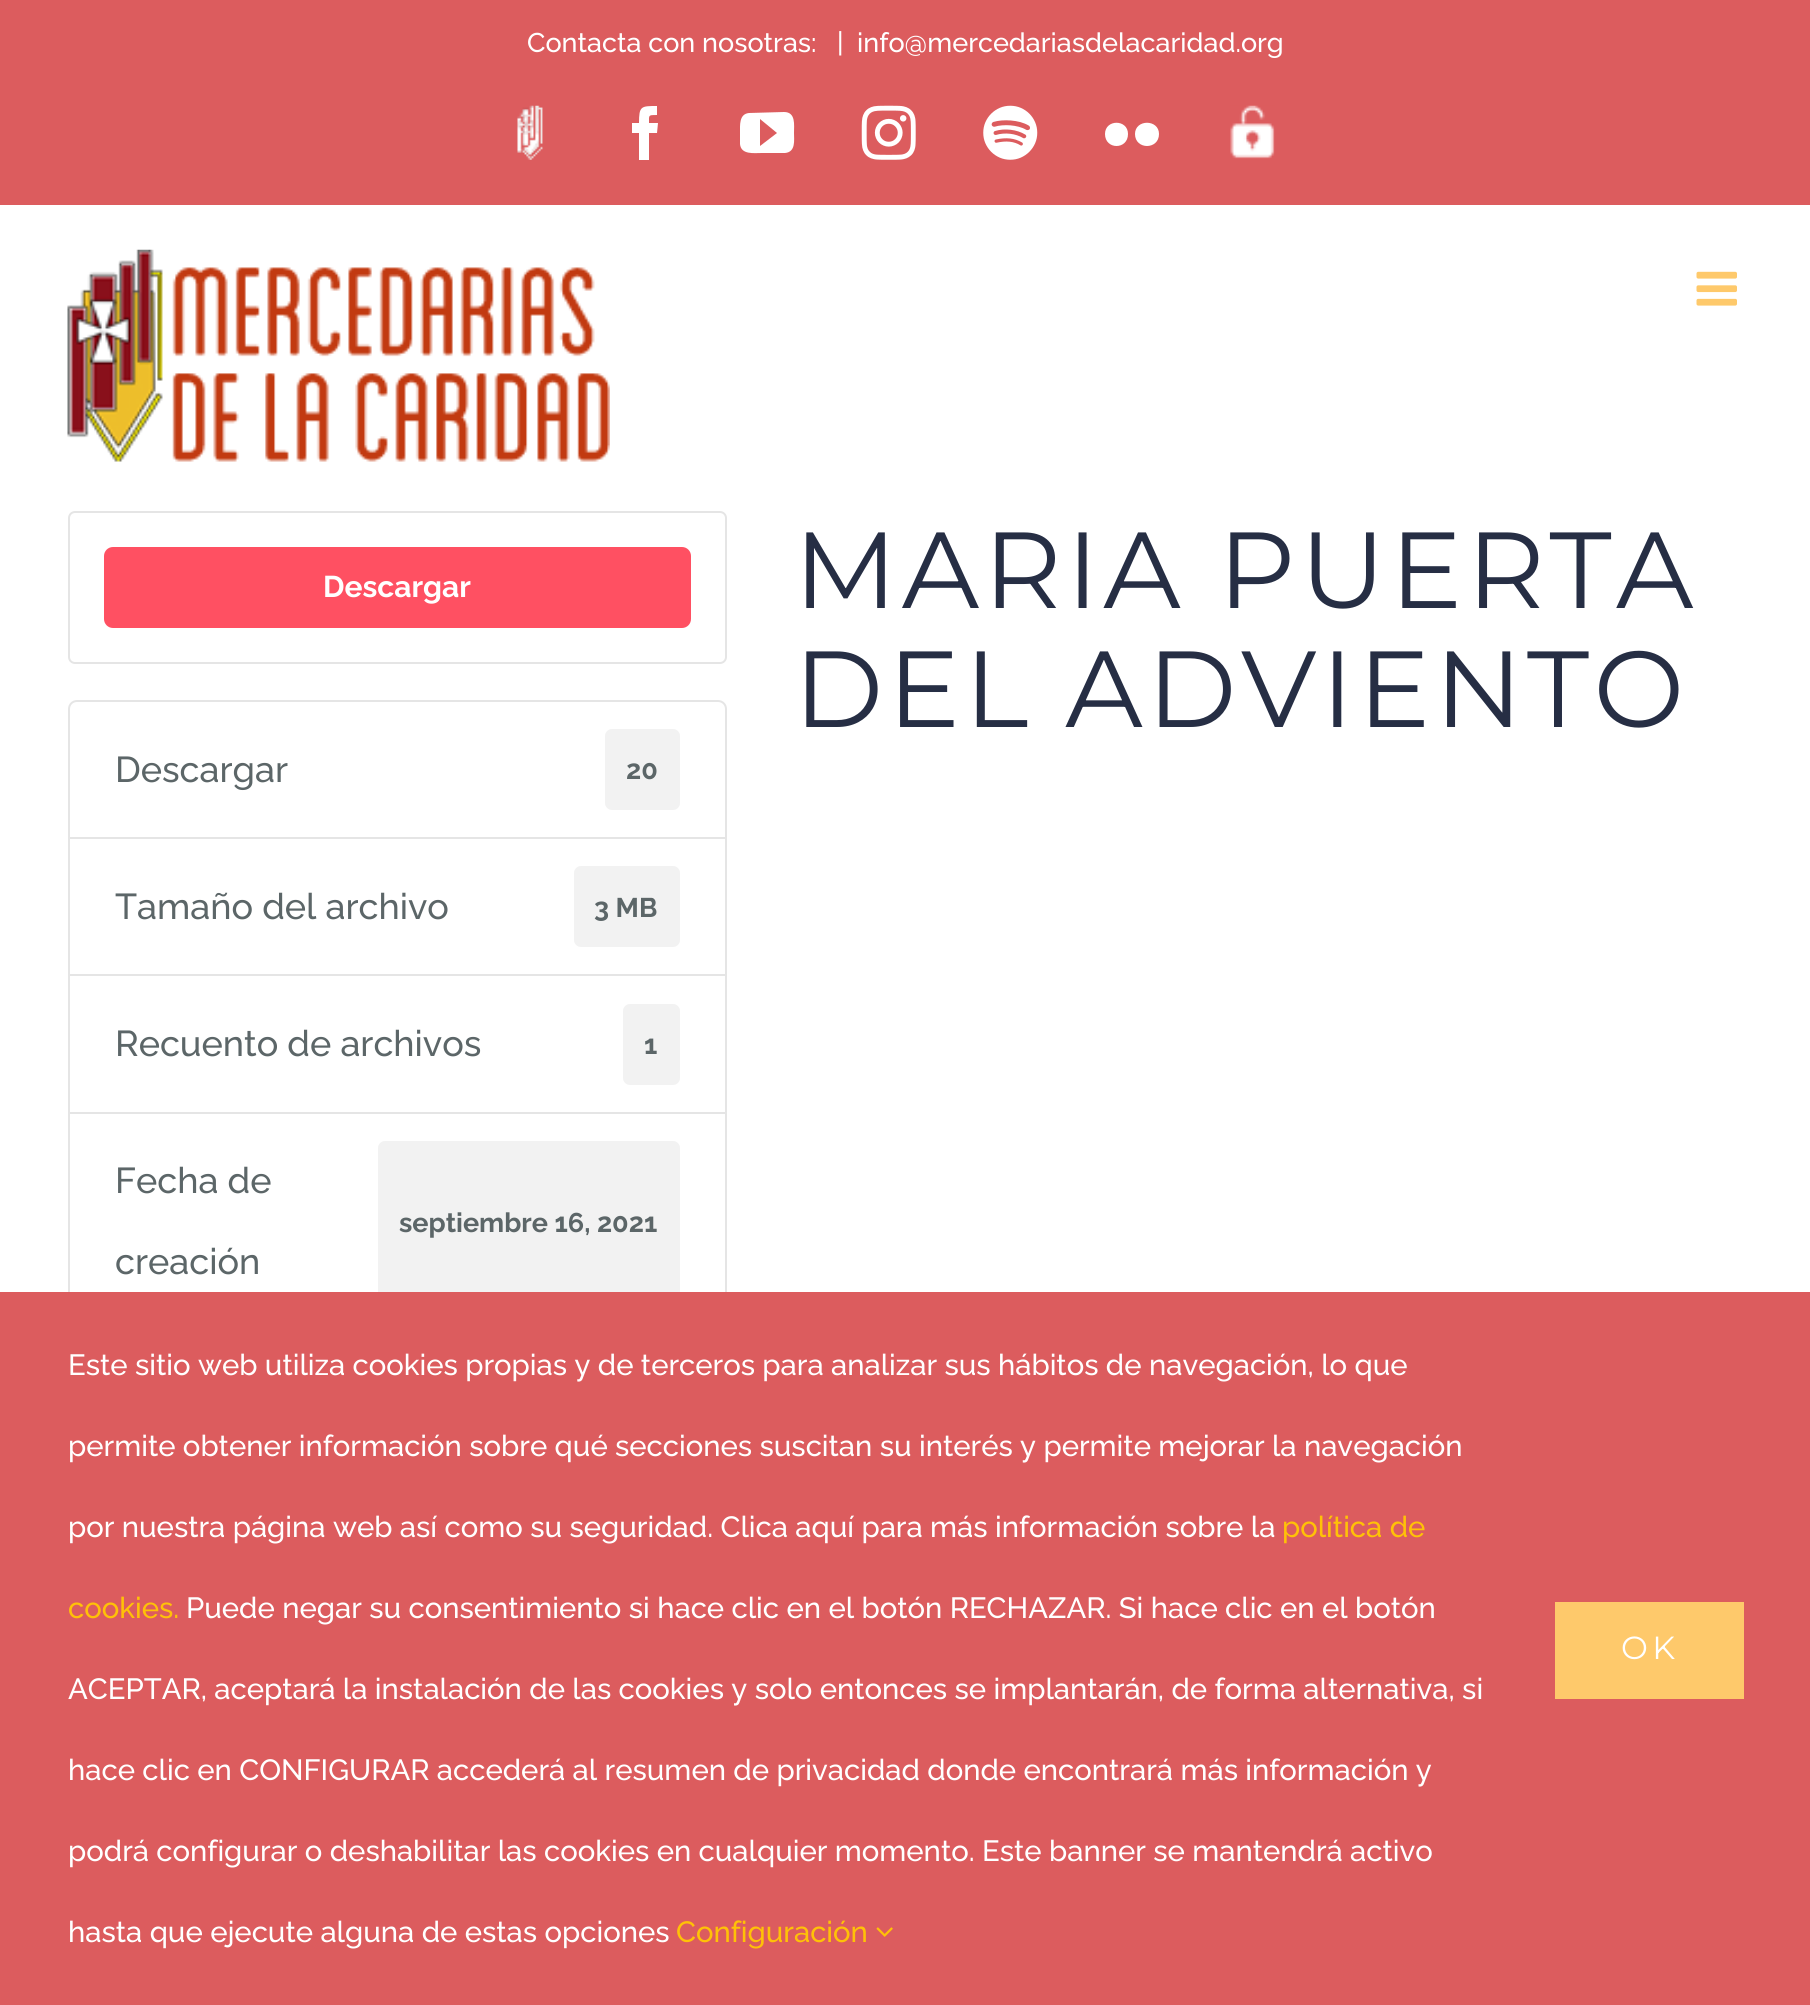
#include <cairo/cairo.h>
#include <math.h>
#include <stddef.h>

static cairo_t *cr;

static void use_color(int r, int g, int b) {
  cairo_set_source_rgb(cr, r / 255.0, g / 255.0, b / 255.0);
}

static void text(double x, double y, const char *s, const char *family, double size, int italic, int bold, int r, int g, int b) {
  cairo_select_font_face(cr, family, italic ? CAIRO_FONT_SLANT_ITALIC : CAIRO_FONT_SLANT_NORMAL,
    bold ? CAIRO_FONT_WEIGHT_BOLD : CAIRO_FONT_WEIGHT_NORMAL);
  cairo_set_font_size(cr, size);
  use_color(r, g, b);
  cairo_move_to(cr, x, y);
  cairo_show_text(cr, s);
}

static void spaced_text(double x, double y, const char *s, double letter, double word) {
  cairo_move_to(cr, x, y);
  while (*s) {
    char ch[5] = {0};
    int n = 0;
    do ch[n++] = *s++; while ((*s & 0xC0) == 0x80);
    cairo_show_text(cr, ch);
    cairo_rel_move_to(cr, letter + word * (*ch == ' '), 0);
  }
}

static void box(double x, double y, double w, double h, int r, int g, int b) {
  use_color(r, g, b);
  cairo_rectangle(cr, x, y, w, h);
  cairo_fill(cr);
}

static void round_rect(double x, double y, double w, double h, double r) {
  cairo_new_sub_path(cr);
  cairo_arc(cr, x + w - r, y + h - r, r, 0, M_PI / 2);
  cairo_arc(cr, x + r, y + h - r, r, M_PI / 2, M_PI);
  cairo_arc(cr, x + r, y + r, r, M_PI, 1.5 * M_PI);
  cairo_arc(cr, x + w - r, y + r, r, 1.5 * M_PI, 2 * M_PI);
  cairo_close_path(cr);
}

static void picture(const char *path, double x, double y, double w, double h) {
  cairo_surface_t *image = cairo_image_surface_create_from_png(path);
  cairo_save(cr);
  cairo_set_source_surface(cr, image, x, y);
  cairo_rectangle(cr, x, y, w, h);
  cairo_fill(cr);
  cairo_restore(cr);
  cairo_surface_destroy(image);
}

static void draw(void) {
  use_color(255, 255, 255);
  cairo_paint(cr);
  box(0, 0, 1810, 205, 220, 92, 94);
  picture("img_01.png", 517, 105, 26, 55);
  use_color(255, 255, 255);
  cairo_new_path(cr);
  cairo_move_to(cr, 649, 160);
  cairo_line_to(cr, 639, 160);
  cairo_line_to(cr, 639, 133);
  cairo_line_to(cr, 632, 133);
  cairo_line_to(cr, 632, 123);
  cairo_line_to(cr, 639, 123);
  cairo_curve_to(cr, 639, 106, 641, 106, 657, 106);
  cairo_line_to(cr, 657, 115);
  cairo_curve_to(cr, 648, 115, 649, 115, 649, 123);
  cairo_line_to(cr, 658, 123);
  cairo_line_to(cr, 657, 133);
  cairo_line_to(cr, 649, 133);
  cairo_close_path(cr);
  cairo_fill(cr);
  cairo_new_path(cr);
  cairo_move_to(cr, 784, 112);
  cairo_line_to(cr, 749, 113);
  cairo_curve_to(cr, 739, 114, 740, 125, 740, 133);
  cairo_line_to(cr, 740, 144);
  cairo_curve_to(cr, 741, 155, 754, 153, 762, 153);
  cairo_line_to(cr, 785, 153);
  cairo_curve_to(cr, 796, 152, 794, 140, 794, 133);
  cairo_curve_to(cr, 794, 125, 796, 112, 784, 112);
  cairo_close_path(cr);
  cairo_move_to(cr, 760, 146);
  cairo_line_to(cr, 760, 119);
  cairo_line_to(cr, 777, 133);
  cairo_close_path(cr);
  cairo_fill(cr);
  picture("img_02.png", 861, 105, 55, 55);
  picture("img_03.png", 983, 105, 55, 55);
  cairo_new_path(cr);
  cairo_move_to(cr, 1105, 134);
  cairo_curve_to(cr, 1105, 119, 1128, 119, 1128, 134);
  cairo_curve_to(cr, 1128, 150, 1105, 150, 1105, 134);
  cairo_close_path(cr);
  cairo_move_to(cr, 1135, 134);
  cairo_curve_to(cr, 1135, 119, 1159, 119, 1159, 134);
  cairo_curve_to(cr, 1159, 150, 1135, 150, 1135, 134);
  cairo_close_path(cr);
  cairo_fill(cr);
  picture("img_04.png", 1230, 105, 45, 54);
  picture("img_05.png", 67, 249, 543, 213);
  picture("img_06.png", 1696, 271, 41, 35);
  round_rect(69, 512, 657, 151, 6);
  use_color(229, 229, 229);
  cairo_stroke(cr);
  use_color(255, 80, 98);
  round_rect(104, 547, 587, 81, 9);
  cairo_fill(cr);
  cairo_new_path(cr);
  cairo_move_to(cr, 77, 701);
  cairo_line_to(cr, 718, 701);
  cairo_curve_to(cr, 722.5, 701, 726, 704.5, 726, 709);
  cairo_line_to(cr, 726, 838);
  cairo_line_to(cr, 69, 838);
  cairo_line_to(cr, 69, 709);
  cairo_curve_to(cr, 69, 704.5, 72.5, 701, 77, 701);
  cairo_close_path(cr);
  use_color(229, 229, 229);
  cairo_stroke(cr);
  use_color(242, 242, 242);
  round_rect(605, 729, 75, 81, 7);
  cairo_fill(cr);
  cairo_rectangle(cr, 69, 838, 657, 138);
  use_color(229, 229, 229);
  cairo_stroke(cr);
  use_color(242, 242, 242);
  round_rect(574, 866, 106, 81, 7);
  cairo_fill(cr);
  box(70, 976, 655, 1, 255, 255, 255);
  cairo_rectangle(cr, 69, 975, 657, 138);
  use_color(229, 229, 229);
  cairo_stroke(cr);
  use_color(242, 242, 242);
  round_rect(623, 1004, 57, 81, 7);
  cairo_fill(cr);
  cairo_rectangle(cr, 69, 1113, 657, 218);
  use_color(229, 229, 229);
  cairo_stroke(cr);
  use_color(242, 242, 242);
  round_rect(378, 1141, 302, 162, 7);
  cairo_fill(cr);
  box(0, 1292, 1810, 713, 220, 92, 94);
  picture("img_07.png", 876, 1927, 17, 10);
  box(1555, 1602, 189, 97, 254, 201, 107);
  text(527, 52, "Contacta con nosotras:", "Raleway Medium", 27, 0, 0, 255, 255, 255);
  text(837, 52, "|", "Raleway Medium", 27, 0, 0, 255, 255, 255);
  text(857, 52, "info@mercedariasdelacaridad.org", "Raleway Medium", 27, 0, 0, 255, 255, 255);
  text(323, 597, "Descargar", "Raleway", 30, 0, 1, 255, 255, 255);
  text(115, 782, "Descargar", "Raleway Medium", 36, 0, 0, 92, 102, 104);
  text(626, 779, "20", "Raleway", 27, 0, 1, 92, 102, 104);
  text(115, 919, "Tamaño del archivo", "Raleway Medium", 36, 0, 0, 92, 102, 104);
  text(594, 917, "3 MB", "Raleway", 27, 0, 1, 92, 102, 104);
  text(115, 1056, "Recuento de archivos", "Raleway Medium", 36, 0, 0, 92, 102, 104);
  text(644, 1054, "1", "Raleway", 27, 0, 1, 92, 102, 104);
  text(115, 1193, "Fecha de", "Raleway Medium", 36, 0, 0, 92, 102, 104);
  text(399, 1232, "septiembre 16, 2021", "Raleway", 27, 0, 1, 92, 102, 104);
  text(115, 1274, "creación", "Raleway Medium", 36, 0, 0, 92, 102, 104);
  cairo_select_font_face(cr, "Montserrat Thin", CAIRO_FONT_SLANT_NORMAL, CAIRO_FONT_WEIGHT_NORMAL);
  cairo_set_font_size(cr, 108);
  use_color(38, 46, 68);
  spaced_text(794, 608, "MARIA PUERTA", 4.5, 0);
  spaced_text(794, 727, "DEL ADVIENTO", 4.5, 0);
  text(68, 1375, "Este sitio web utiliza cookies propias y de terceros para analizar sus hábitos de navegación, lo que", "Raleway Medium", 29.25, 0, 0, 255, 255, 255);
  text(68, 1456, "permite obtener información sobre qué secciones suscitan su interés y permite mejorar la navegación", "Raleway Medium", 29.25, 0, 0, 255, 255, 255);
  text(68, 1537, "por nuestra página web así como su seguridad. Clica aquí para más información sobre la", "Raleway Medium", 29.25, 0, 0, 255, 255, 255);
  text(1282, 1537, "política de", "Raleway Medium", 29.25, 0, 0, 255, 193, 7);
  text(68, 1618, "cookies.", "Raleway Medium", 29.25, 0, 0, 255, 193, 7);
  text(186, 1618, "Puede negar su consentimiento si hace clic en el botón RECHAZAR. Si hace clic en el botón", "Raleway Medium", 29.25, 0, 0, 255, 255, 255);
  text(68, 1699, "ACEPTAR, aceptará la instalación de las cookies y solo entonces se implantarán, de forma alternativa, si", "Raleway Medium", 29.25, 0, 0, 255, 255, 255);
  text(68, 1780, "hace clic en CONFIGURAR accederá al resumen de privacidad donde encontrará más información y", "Raleway Medium", 29.25, 0, 0, 255, 255, 255);
  text(68, 1861, "podrá configurar o deshabilitar las cookies en cualquier momento. Este banner se mantendrá activo", "Raleway Medium", 29.25, 0, 0, 255, 255, 255);
  text(68, 1942, "hasta que ejecute alguna de estas opciones", "Raleway Medium", 29.25, 0, 0, 255, 255, 255);
  text(676, 1942, "Configuración", "Raleway Medium", 29.25, 0, 0, 255, 193, 7);
  cairo_select_font_face(cr, "Montserrat Thin", CAIRO_FONT_SLANT_NORMAL, CAIRO_FONT_WEIGHT_NORMAL);
  cairo_set_font_size(cr, 32);
  use_color(255, 255, 255);
  spaced_text(1621, 1659, "OK", 4.5, 0);
}

int main(void) {
  cairo_surface_t *surface = cairo_image_surface_create(CAIRO_FORMAT_RGB24, 1810, 2005);
  cr = cairo_create(surface);
  cairo_font_options_t *options = cairo_font_options_create();
  cairo_font_options_set_hint_metrics(options, CAIRO_HINT_METRICS_OFF);
  cairo_font_options_set_hint_style(options, CAIRO_HINT_STYLE_NONE);
  cairo_set_font_options(cr, options);
  cairo_set_miter_limit(cr, 4);
  draw();
  cairo_surface_write_to_png(surface, "out.png");
  cairo_font_options_destroy(options);
  cairo_destroy(cr);
  cairo_surface_destroy(surface);
  return 0;
}
